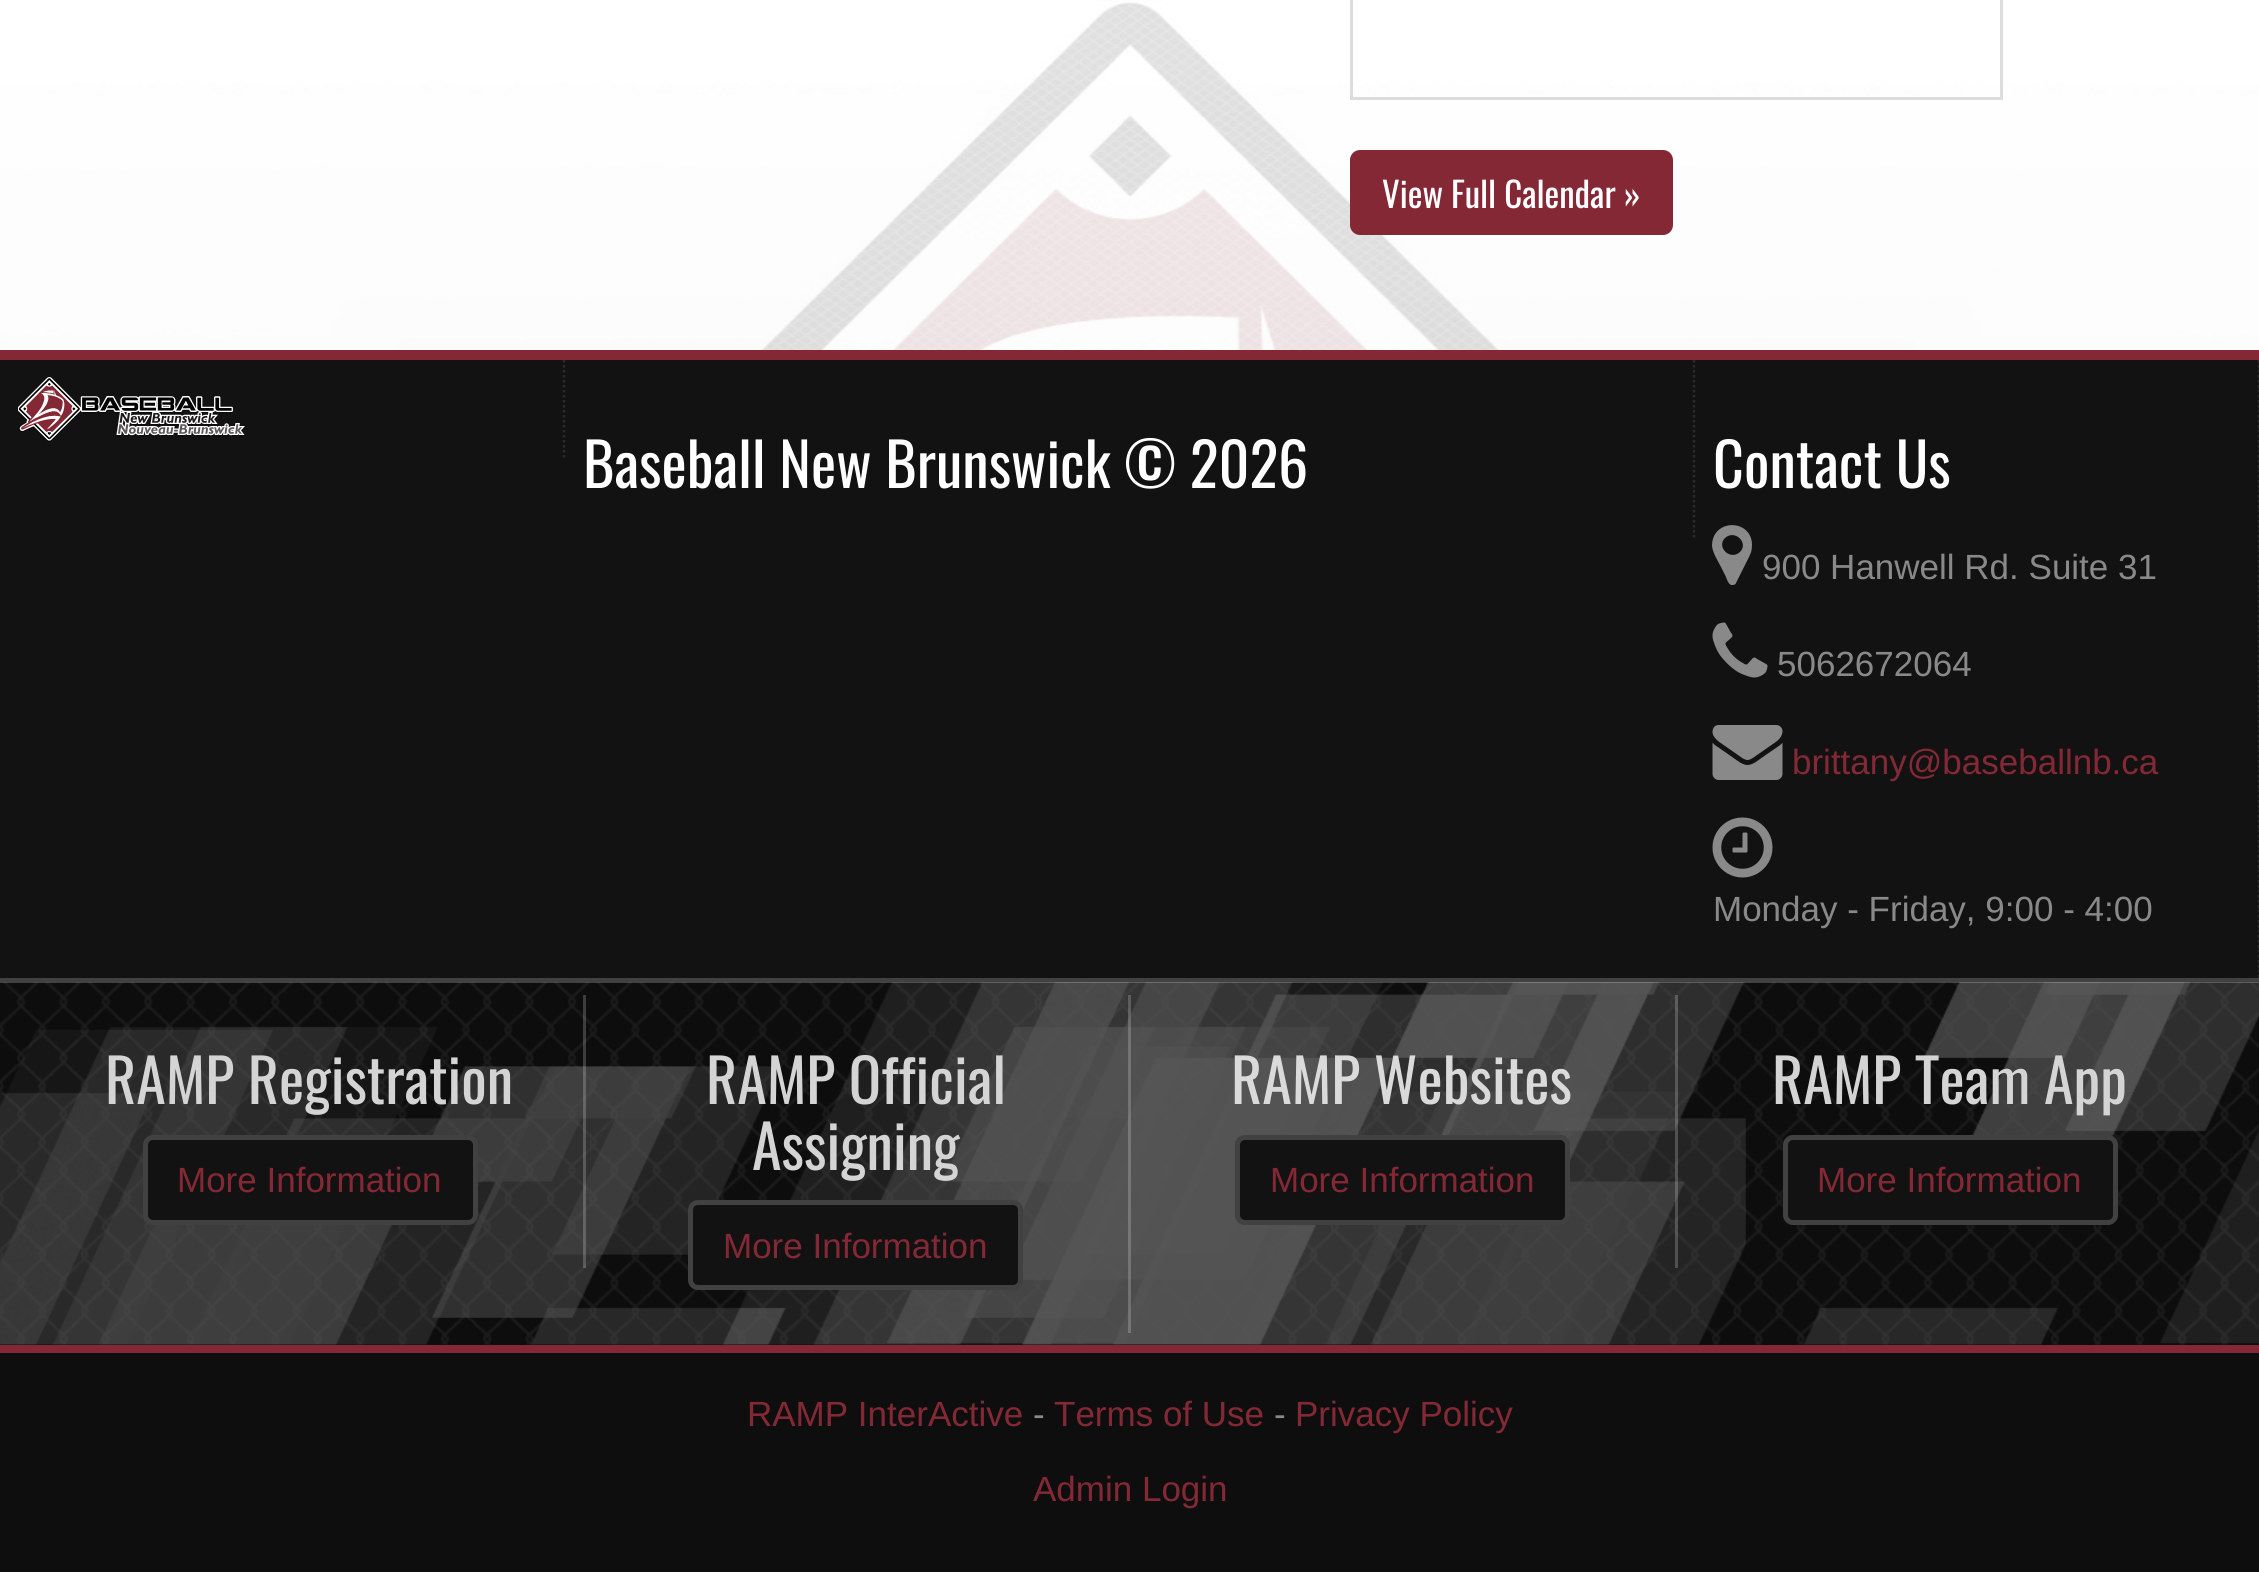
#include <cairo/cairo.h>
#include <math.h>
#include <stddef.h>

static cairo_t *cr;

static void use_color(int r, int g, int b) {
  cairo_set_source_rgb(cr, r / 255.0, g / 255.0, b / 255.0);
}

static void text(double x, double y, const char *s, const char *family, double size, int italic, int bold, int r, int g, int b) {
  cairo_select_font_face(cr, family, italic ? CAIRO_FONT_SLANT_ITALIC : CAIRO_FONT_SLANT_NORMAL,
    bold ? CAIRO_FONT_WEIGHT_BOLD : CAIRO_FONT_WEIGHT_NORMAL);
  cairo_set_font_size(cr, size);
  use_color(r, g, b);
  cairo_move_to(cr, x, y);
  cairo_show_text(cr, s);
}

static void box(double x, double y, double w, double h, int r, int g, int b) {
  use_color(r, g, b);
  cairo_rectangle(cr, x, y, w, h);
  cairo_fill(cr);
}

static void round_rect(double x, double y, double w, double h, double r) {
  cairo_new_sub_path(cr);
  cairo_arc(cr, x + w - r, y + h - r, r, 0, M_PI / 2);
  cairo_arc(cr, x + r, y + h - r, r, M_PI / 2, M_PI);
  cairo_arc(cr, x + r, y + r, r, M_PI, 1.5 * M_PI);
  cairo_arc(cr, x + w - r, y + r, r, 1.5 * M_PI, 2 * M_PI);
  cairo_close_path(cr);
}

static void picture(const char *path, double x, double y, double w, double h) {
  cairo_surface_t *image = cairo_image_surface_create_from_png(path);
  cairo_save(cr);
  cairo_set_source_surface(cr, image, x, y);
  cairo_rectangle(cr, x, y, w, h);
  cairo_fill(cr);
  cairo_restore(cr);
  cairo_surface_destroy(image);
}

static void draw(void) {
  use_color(255, 255, 255);
  cairo_paint(cr);
  picture("img_01.png", 0, 0, 2259, 350);
  cairo_set_source_rgba(cr, 1, 1, 1, 0.6);
  cairo_rectangle(cr, 0, 2, 2259, 348);
  cairo_fill(cr);
  cairo_rectangle(cr, 1351.5, -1.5, 650, 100);
  use_color(221, 221, 221);
  cairo_set_line_width(cr, 3);
  cairo_stroke(cr);
  use_color(132, 40, 53);
  round_rect(1350, 150, 323, 85, 10);
  cairo_fill(cr);
  box(0, 350, 2259, 10, 132, 40, 53);
  box(0, 360, 2259, 618, 18, 18, 18);
  cairo_new_path(cr);
  cairo_move_to(cr, 564, 360);
  cairo_line_to(cr, 564, 460);
  use_color(42, 42, 42);
  cairo_set_line_width(cr, 2.5);
  cairo_set_dash(cr, (double[]){2.5, 2.5}, 2, 0);
  cairo_stroke(cr);
  picture("img_02.png", 18, 377, 227, 65);
  cairo_new_path(cr);
  cairo_move_to(cr, 1694, 360);
  cairo_line_to(cr, 1694, 537.5);
  cairo_stroke(cr);
  cairo_new_path(cr);
  cairo_move_to(cr, 2259, 360);
  cairo_line_to(cr, 2259, 977.5);
  cairo_stroke(cr);
  use_color(137, 137, 137);
  cairo_new_path(cr);
  cairo_move_to(cr, 1740, 552);
  cairo_curve_to(cr, 1749, 543, 1735, 529, 1725, 538);
  cairo_curve_to(cr, 1716, 547, 1730, 561, 1740, 552);
  cairo_close_path(cr);
  cairo_move_to(cr, 1752, 545);
  cairo_curve_to(cr, 1752, 550, 1751, 553, 1749, 557);
  cairo_line_to(cr, 1736, 583);
  cairo_curve_to(cr, 1736, 584, 1734, 585, 1733, 585);
  cairo_curve_to(cr, 1729, 586, 1727, 580, 1726, 577);
  cairo_line_to(cr, 1721, 567);
  cairo_curve_to(cr, 1718, 561, 1712, 552, 1712, 545);
  cairo_curve_to(cr, 1713, 518, 1752, 519, 1752, 545);
  cairo_close_path(cr);
  cairo_fill(cr);
  picture("img_03.png", 1712, 622, 56, 56);
  picture("img_04.png", 1712, 725, 71, 55);
  picture("img_05.png", 1712, 817, 61, 61);
  box(0, 978, 2259, 5, 65, 65, 65);
  box(0, 983, 2259, 362, 13, 13, 13);
  picture("img_06.png", 0, 982, 2259, 363);
  cairo_set_source_rgba(cr, 1, 1, 1, 0.2);
  cairo_rectangle(cr, 583, 995, 3, 273);
  cairo_fill(cr);
  use_color(18, 18, 18);
  round_rect(143, 1135, 335, 90, 10);
  cairo_fill(cr);
  round_rect(145.5, 1137.5, 330, 85, 7.5);
  cairo_set_source_rgba(cr, 1, 1, 1, 0.2);
  cairo_set_line_width(cr, 5);
  cairo_set_dash(cr, NULL, 0, 0);
  cairo_stroke(cr);
  cairo_rectangle(cr, 1128, 995, 3, 338);
  cairo_fill(cr);
  use_color(18, 18, 18);
  round_rect(688, 1200, 335, 90, 10);
  cairo_fill(cr);
  round_rect(690.5, 1202.5, 330, 85, 7.5);
  cairo_set_source_rgba(cr, 1, 1, 1, 0.2);
  cairo_stroke(cr);
  cairo_rectangle(cr, 1675, 995, 3, 273);
  cairo_fill(cr);
  use_color(18, 18, 18);
  round_rect(1235, 1135, 335, 90, 10);
  cairo_fill(cr);
  round_rect(1237.5, 1137.5, 330, 85, 7.5);
  cairo_set_source_rgba(cr, 1, 1, 1, 0.2);
  cairo_stroke(cr);
  use_color(18, 18, 18);
  round_rect(1783, 1135, 335, 90, 10);
  cairo_fill(cr);
  round_rect(1785.5, 1137.5, 330, 85, 7.5);
  cairo_set_source_rgba(cr, 1, 1, 1, 0.2);
  cairo_stroke(cr);
  box(0, 1345, 2259, 8, 132, 40, 53);
  box(0, 1353, 2259, 219, 14, 14, 14);
  text(1382, 208, "View Full Calendar »", "Oswald", 35, 0, 0, 255, 255, 255);
  text(583, 488, "Baseball New Brunswick © 2026", "Oswald", 60, 0, 0, 255, 255, 255);
  text(1713, 488, "Contact Us", "Oswald", 60, 0, 0, 255, 255, 255);
  text(1762, 579, "900 Hanwell Rd. Suite 31", "Liberation Sans", 35, 0, 0, 137, 137, 137);
  text(1777, 676, "5062672064", "Liberation Sans", 35, 0, 0, 137, 137, 137);
  text(1792, 774, "brittany@baseballnb.ca", "Liberation Sans", 35, 0, 0, 132, 40, 53);
  text(1713, 921, "Monday - Friday, 9:00 - 4:00", "Liberation Sans", 35, 0, 0, 137, 137, 137);
  text(105, 1104, "RAMP Registration", "Oswald", 60, 0, 0, 212, 212, 212);
  text(177, 1192, "More Information", "Liberation Sans", 35, 0, 0, 132, 40, 53);
  text(706, 1104, "RAMP Official", "Oswald", 60, 0, 0, 212, 212, 212);
  text(752, 1170, "Assigning", "Oswald", 60, 0, 0, 212, 212, 212);
  text(723, 1258, "More Information", "Liberation Sans", 35, 0, 0, 132, 40, 53);
  text(1231, 1104, "RAMP Websites", "Oswald", 60, 0, 0, 218, 218, 218);
  text(1270, 1192, "More Information", "Liberation Sans", 35, 0, 0, 132, 40, 53);
  text(1772, 1104, "RAMP Team App", "Oswald", 60, 0, 0, 212, 212, 212);
  text(1817, 1192, "More Information", "Liberation Sans", 35, 0, 0, 132, 40, 53);
  text(747, 1426, "RAMP InterActive", "Liberation Sans", 35, 0, 0, 132, 40, 53);
  text(1033, 1426, "-", "Liberation Sans", 35, 0, 0, 137, 137, 137);
  text(1054, 1426, "Terms of Use", "Liberation Sans", 35, 0, 0, 132, 40, 53);
  text(1274, 1426, "-", "Liberation Sans", 35, 0, 0, 137, 137, 137);
  text(1295, 1426, "Privacy Policy", "Liberation Sans", 35, 0, 0, 132, 40, 53);
  text(1033, 1501, "Admin Login", "Liberation Sans", 35, 0, 0, 132, 40, 53);
}

int main(void) {
  cairo_surface_t *surface = cairo_image_surface_create(CAIRO_FORMAT_RGB24, 2259, 1572);
  cr = cairo_create(surface);
  cairo_font_options_t *options = cairo_font_options_create();
  cairo_font_options_set_hint_metrics(options, CAIRO_HINT_METRICS_OFF);
  cairo_font_options_set_hint_style(options, CAIRO_HINT_STYLE_NONE);
  cairo_set_font_options(cr, options);
  cairo_set_miter_limit(cr, 4);
  draw();
  cairo_surface_write_to_png(surface, "out.png");
  cairo_font_options_destroy(options);
  cairo_destroy(cr);
  cairo_surface_destroy(surface);
  return 0;
}
